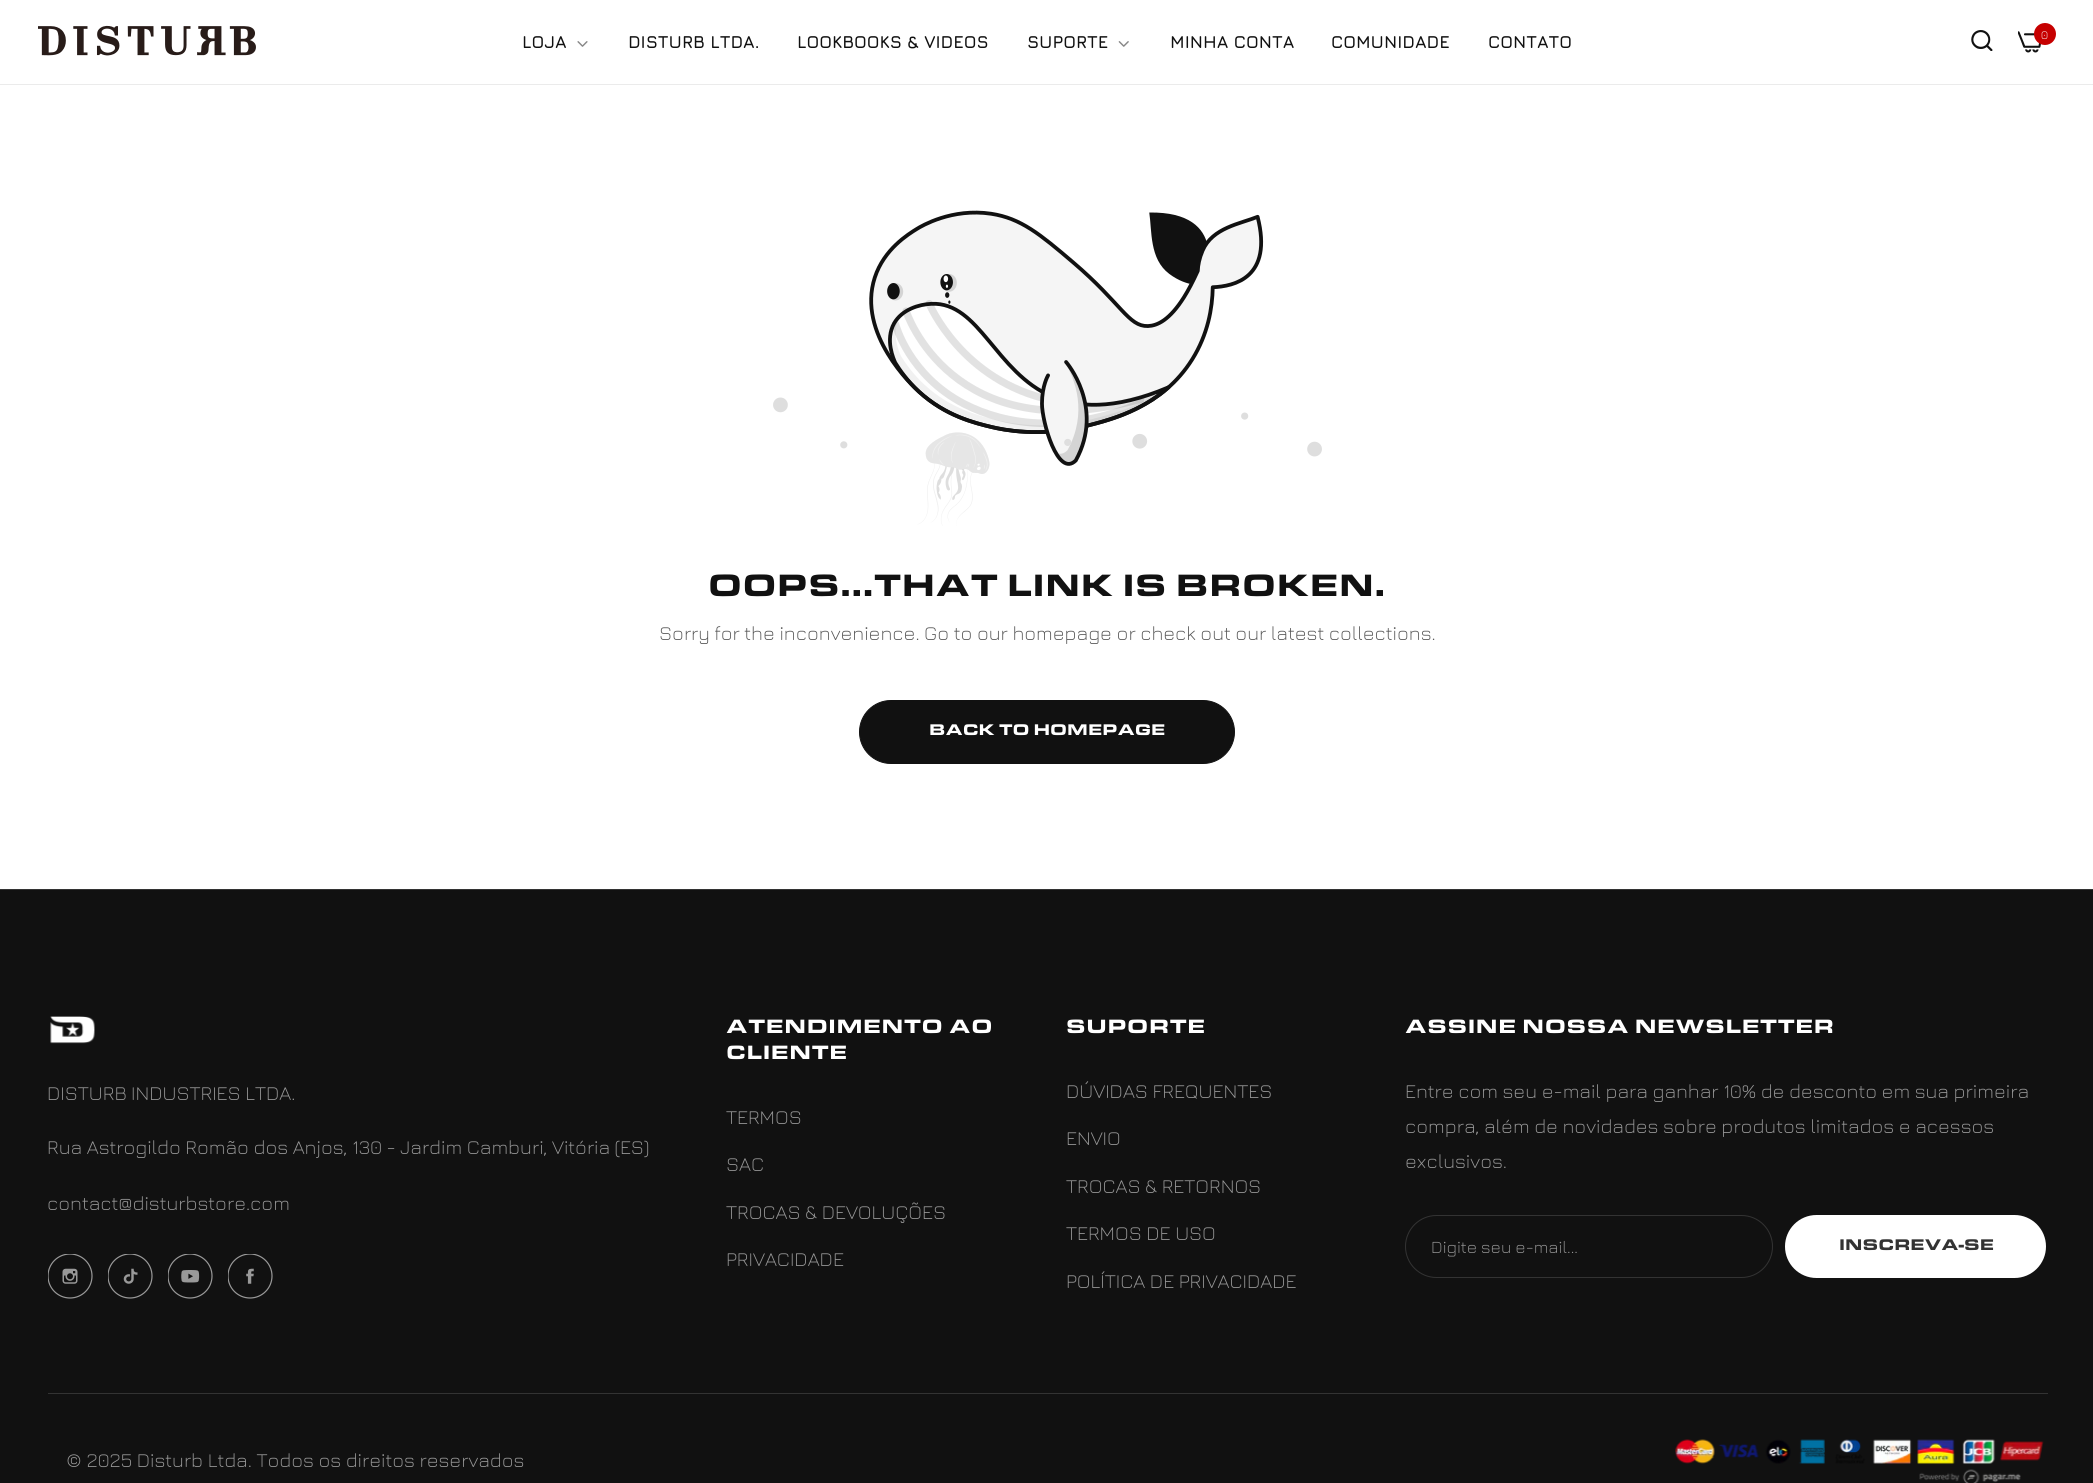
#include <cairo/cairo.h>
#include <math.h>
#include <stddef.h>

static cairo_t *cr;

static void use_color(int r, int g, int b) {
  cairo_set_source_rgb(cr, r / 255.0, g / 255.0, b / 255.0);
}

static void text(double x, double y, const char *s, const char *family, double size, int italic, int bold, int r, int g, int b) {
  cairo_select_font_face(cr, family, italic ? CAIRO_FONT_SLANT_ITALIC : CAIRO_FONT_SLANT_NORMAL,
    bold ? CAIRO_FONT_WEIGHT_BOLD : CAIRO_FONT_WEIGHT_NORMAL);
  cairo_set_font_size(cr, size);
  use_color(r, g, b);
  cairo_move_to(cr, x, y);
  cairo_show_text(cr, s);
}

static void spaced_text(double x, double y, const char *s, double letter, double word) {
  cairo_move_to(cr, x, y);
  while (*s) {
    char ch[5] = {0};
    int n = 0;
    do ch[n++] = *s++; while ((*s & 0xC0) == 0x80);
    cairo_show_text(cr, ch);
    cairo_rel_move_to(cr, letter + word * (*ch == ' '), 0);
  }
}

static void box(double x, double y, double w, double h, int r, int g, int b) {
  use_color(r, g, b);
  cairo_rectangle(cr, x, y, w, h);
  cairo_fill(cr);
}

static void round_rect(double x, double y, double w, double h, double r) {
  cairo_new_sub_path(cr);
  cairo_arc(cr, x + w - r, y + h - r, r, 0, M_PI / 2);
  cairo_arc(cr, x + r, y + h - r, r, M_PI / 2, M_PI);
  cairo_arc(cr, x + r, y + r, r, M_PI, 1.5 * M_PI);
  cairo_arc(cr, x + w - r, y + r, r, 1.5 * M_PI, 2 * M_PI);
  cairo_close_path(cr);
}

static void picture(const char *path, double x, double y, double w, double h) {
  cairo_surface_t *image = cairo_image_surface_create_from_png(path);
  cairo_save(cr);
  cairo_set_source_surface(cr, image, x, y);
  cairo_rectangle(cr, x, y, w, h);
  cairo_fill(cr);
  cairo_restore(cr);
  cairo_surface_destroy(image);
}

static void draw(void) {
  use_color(255, 255, 255);
  cairo_paint(cr);
  box(0, 84, 2093, 1, 235, 235, 235);
  picture("img_01.png", 38, 25, 218, 31);
  picture("img_02.png", 577, 41, 11, 6);
  picture("img_03.png", 1118, 41, 11, 6);
  picture("img_04.png", 1971, 30, 22, 21);
  picture("img_05.png", 2018, 31, 23, 22);
  use_color(198, 0, 0);
  cairo_arc(cr, 2045, 34, 11, 0, 2 * M_PI);
  cairo_fill(cr);
  picture("img_06.png", 773, 210, 549, 316);
  use_color(17, 17, 17);
  round_rect(859.5, 700.5, 375, 63, 31.5);
  cairo_fill_preserve(cr);
  cairo_set_line_width(cr, 1);
  cairo_stroke(cr);
  box(0, 890, 2093, 593, 17, 17, 17);
  box(0, 889, 2093, 1, 51, 51, 51);
  picture("img_07.png", 50, 1016, 45, 28);
  picture("img_08.png", 48, 1254, 45, 45);
  picture("img_09.png", 108, 1254, 45, 45);
  picture("img_10.png", 168, 1254, 45, 45);
  picture("img_11.png", 228, 1254, 45, 45);
  round_rect(1405.5, 1215.5, 367, 62, 31);
  cairo_stroke(cr);
  use_color(255, 255, 255);
  round_rect(1785, 1215, 261, 63, 31.5);
  cairo_fill(cr);
  box(48, 1393, 2000, 1, 51, 51, 51);
  picture("img_12.png", 1675, 1439, 369, 44);
  text(522, 48, "LOJA", "Jura", 17.5, 0, 1, 17, 17, 17);
  text(628, 48, "DISTURB LTDA.", "Jura", 17.5, 0, 1, 17, 17, 17);
  text(797, 48, "LOOKBOOKS & VIDEOS", "Jura", 17.5, 0, 1, 17, 17, 17);
  text(1027, 48, "SUPORTE", "Jura", 17.5, 0, 1, 17, 17, 17);
  text(1170, 48, "MINHA CONTA", "Jura", 17.5, 0, 1, 17, 17, 17);
  text(1331, 48, "COMUNIDADE", "Jura", 17.5, 0, 1, 17, 17, 17);
  text(1488, 48, "CONTATO", "Jura", 17.5, 0, 1, 17, 17, 17);
  text(2041, 39, "0", "Jura Light", 12, 0, 0, 255, 255, 255);
  cairo_select_font_face(cr, "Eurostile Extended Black", CAIRO_FONT_SLANT_NORMAL, CAIRO_FONT_WEIGHT_NORMAL);
  cairo_set_font_size(cr, 32);
  use_color(17, 17, 17);
  spaced_text(708, 596, "OOPS...THAT LINK IS BROKEN.", 0.6, 0);
  text(659, 640, "Sorry for the inconvenience. Go to our homepage or check out our latest collections.", "Jura Light", 20, 0, 0, 85, 85, 85);
  text(929, 735, "BACK TO HOMEPAGE", "Eurostile Extended Black", 16, 0, 0, 255, 255, 255);
  text(47, 1100, "DISTURB INDUSTRIES LTDA.", "Jura Light", 20, 0, 0, 153, 153, 153);
  text(47, 1154, "Rua Astrogildo Romão dos Anjos, 130 - Jardim Camburi, Vitória (ES)", "Jura Light", 20, 0, 0, 153, 153, 153);
  text(47, 1210, "contact@disturbstore.com", "Jura Light", 20, 0, 0, 153, 153, 153);
  cairo_select_font_face(cr, "Eurostile Extended Black", CAIRO_FONT_SLANT_NORMAL, CAIRO_FONT_WEIGHT_NORMAL);
  use_color(255, 255, 255);
  spaced_text(726, 1033, "ATENDIMENTO AO", 0.6, 0);
  spaced_text(726, 1059, "CLIENTE", 0.6, 0);
  text(726, 1124, "TERMOS", "Jura Light", 20, 0, 0, 153, 153, 153);
  text(726, 1171, "SAC", "Jura Light", 20, 0, 0, 153, 153, 153);
  text(726, 1219, "TROCAS & DEVOLUÇÕES", "Jura Light", 20, 0, 0, 153, 153, 153);
  text(726, 1266, "PRIVACIDADE", "Jura Light", 20, 0, 0, 153, 153, 153);
  cairo_select_font_face(cr, "Eurostile Extended Black", CAIRO_FONT_SLANT_NORMAL, CAIRO_FONT_WEIGHT_NORMAL);
  use_color(255, 255, 255);
  spaced_text(1066, 1033, "SUPORTE", 0.6, 0);
  text(1066, 1098, "DÚVIDAS FREQUENTES", "Jura Light", 20, 0, 0, 153, 153, 153);
  text(1066, 1145, "ENVIO", "Jura Light", 20, 0, 0, 153, 153, 153);
  text(1066, 1193, "TROCAS & RETORNOS", "Jura Light", 20, 0, 0, 153, 153, 153);
  text(1066, 1240, "TERMOS DE USO", "Jura Light", 20, 0, 0, 153, 153, 153);
  text(1066, 1288, "POLÍTICA DE PRIVACIDADE", "Jura Light", 20, 0, 0, 153, 153, 153);
  cairo_select_font_face(cr, "Eurostile Extended Black", CAIRO_FONT_SLANT_NORMAL, CAIRO_FONT_WEIGHT_NORMAL);
  use_color(255, 255, 255);
  spaced_text(1405, 1033, "ASSINE NOSSA NEWSLETTER", 0.6, 0);
  text(1405, 1098, "Entre com seu e-mail para ganhar 10% de desconto em sua primeira", "Jura Light", 20, 0, 0, 153, 153, 153);
  text(1405, 1133, "compra, além de novidades sobre produtos limitados e acessos", "Jura Light", 20, 0, 0, 153, 153, 153);
  text(1405, 1168, "exclusivos.", "Jura Light", 20, 0, 0, 153, 153, 153);
  text(1431, 1253, "Digite seu e-mail...", "Jura Light", 17.5, 0, 0, 153, 153, 153);
  text(1839, 1250, "INSCREVA-SE", "Eurostile Extended Black", 16, 0, 0, 51, 51, 51);
  text(66, 1467, "© 2025 Disturb Ltda. Todos os direitos reservados", "Jura Light", 20, 0, 0, 153, 153, 153);
}

int main(void) {
  cairo_surface_t *surface = cairo_image_surface_create(CAIRO_FORMAT_RGB24, 2093, 1483);
  cr = cairo_create(surface);
  cairo_font_options_t *options = cairo_font_options_create();
  cairo_font_options_set_hint_metrics(options, CAIRO_HINT_METRICS_OFF);
  cairo_font_options_set_hint_style(options, CAIRO_HINT_STYLE_NONE);
  cairo_set_font_options(cr, options);
  cairo_set_miter_limit(cr, 4);
  draw();
  cairo_surface_write_to_png(surface, "out.png");
  cairo_font_options_destroy(options);
  cairo_destroy(cr);
  cairo_surface_destroy(surface);
  return 0;
}
